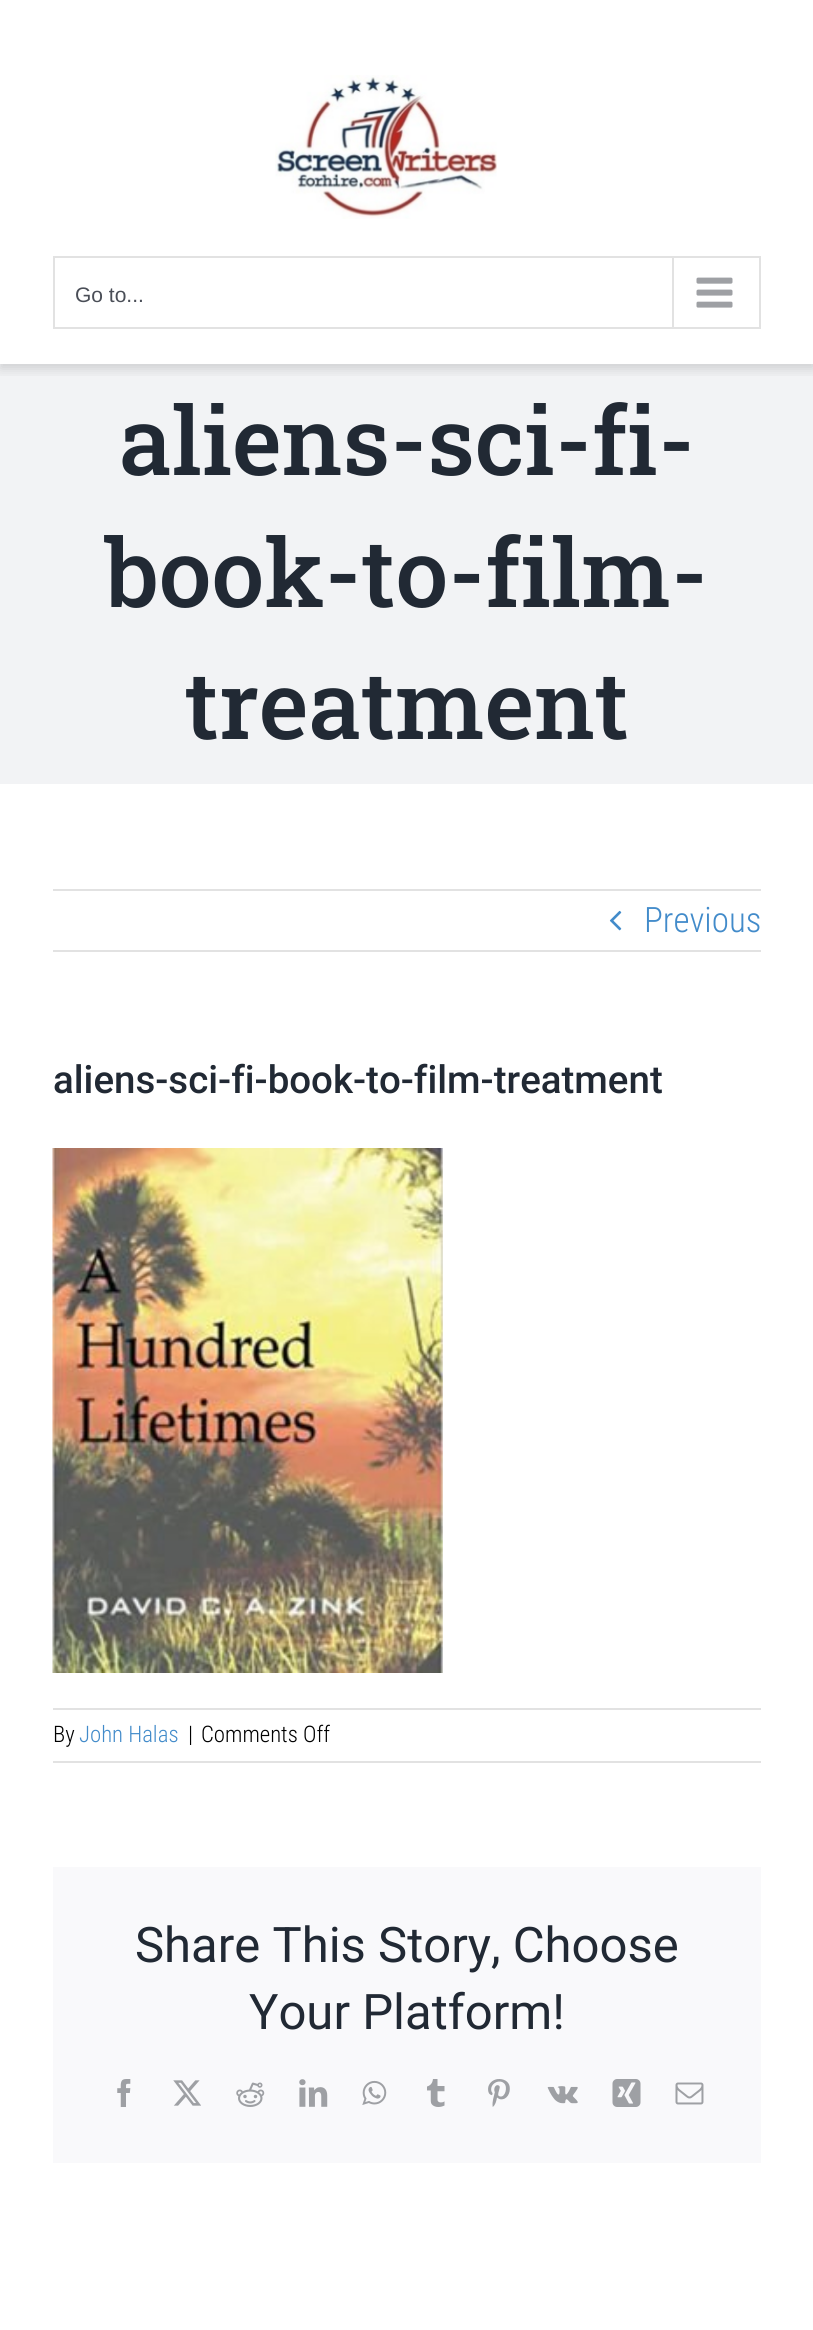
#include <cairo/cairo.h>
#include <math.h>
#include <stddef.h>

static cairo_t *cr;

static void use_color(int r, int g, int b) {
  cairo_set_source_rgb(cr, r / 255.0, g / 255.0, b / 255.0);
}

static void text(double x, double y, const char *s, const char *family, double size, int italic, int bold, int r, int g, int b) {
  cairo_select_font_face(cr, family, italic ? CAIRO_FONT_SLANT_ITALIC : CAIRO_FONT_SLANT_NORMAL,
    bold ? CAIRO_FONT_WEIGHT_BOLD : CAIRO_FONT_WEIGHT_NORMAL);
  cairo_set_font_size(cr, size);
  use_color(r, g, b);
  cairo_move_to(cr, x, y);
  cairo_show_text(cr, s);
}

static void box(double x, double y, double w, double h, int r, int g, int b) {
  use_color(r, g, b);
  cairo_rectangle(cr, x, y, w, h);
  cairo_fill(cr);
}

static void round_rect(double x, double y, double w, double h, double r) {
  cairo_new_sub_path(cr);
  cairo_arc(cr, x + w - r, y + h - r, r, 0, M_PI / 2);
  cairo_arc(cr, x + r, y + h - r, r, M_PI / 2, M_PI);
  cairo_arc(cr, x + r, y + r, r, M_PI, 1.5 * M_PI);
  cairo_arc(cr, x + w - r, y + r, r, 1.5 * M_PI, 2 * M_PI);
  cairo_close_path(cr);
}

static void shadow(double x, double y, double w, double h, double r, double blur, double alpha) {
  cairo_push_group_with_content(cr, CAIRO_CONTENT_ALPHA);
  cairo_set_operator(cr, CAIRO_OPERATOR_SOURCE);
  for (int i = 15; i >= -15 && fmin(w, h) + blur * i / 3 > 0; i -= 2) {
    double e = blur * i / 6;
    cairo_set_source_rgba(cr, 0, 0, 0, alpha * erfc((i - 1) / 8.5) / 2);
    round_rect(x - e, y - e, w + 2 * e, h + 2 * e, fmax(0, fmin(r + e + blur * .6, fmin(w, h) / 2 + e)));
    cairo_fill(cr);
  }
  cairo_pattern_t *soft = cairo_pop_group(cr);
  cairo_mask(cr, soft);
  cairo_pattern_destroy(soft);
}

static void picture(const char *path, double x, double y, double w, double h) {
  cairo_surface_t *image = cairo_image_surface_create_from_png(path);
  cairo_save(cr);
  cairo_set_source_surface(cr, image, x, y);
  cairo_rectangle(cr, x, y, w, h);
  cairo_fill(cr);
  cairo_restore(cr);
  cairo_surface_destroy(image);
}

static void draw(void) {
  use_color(255, 255, 255);
  cairo_paint(cr);
  box(0, 364, 813, 420, 242, 243, 245);
  cairo_save(cr);
  cairo_rectangle(cr, 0, 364, 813, 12);
  cairo_clip(cr);
  use_color(0, 0, 0);
  shadow(0, 5, 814, 364, 0, 6, 0.15);
  cairo_restore(cr);
  picture("img_01.png", 275, 75, 222, 144);
  cairo_rectangle(cr, 54, 257, 706, 71);
  use_color(226, 226, 226);
  cairo_stroke(cr);
  box(672, 257, 2, 70, 226, 226, 226);
  picture("img_02.png", 696, 277, 37, 31);
  box(53, 889, 708, 2, 226, 226, 226);
  box(53, 950, 708, 2, 226, 226, 226);
  picture("img_03.png", 609, 910, 13, 21);
  picture("img_04.png", 52, 1148, 391, 525);
  box(53, 1708, 708, 2, 226, 226, 226);
  box(53, 1761, 708, 2, 226, 226, 226);
  box(53, 1867, 708, 296, 249, 249, 251);
  picture("img_05.png", 117, 2079, 14, 28);
  picture("img_06.png", 173, 2080, 28, 26);
  picture("img_07.png", 236, 2082, 29, 25);
  picture("img_08.png", 299, 2079, 29, 28);
  picture("img_09.png", 362, 2080, 25, 25);
  picture("img_10.png", 427, 2079, 18, 28);
  picture("img_11.png", 488, 2079, 22, 28);
  picture("img_12.png", 547, 2086, 31, 18);
  picture("img_13.png", 612, 2079, 29, 28);
  picture("img_14.png", 675, 2082, 29, 23);
  text(75, 302, "Go to...", "Liberation Sans", 21, 0, 0, 74, 78, 87);
  text(119, 475, "aliens-sci-fi-", "Roboto Slab Medium", 94.5, 0, 0, 33, 41, 52);
  text(105, 607, "book-to-film-", "Roboto Slab Medium", 94.5, 0, 0, 33, 41, 52);
  text(185, 739, "treatment", "Roboto Slab Medium", 94.5, 0, 0, 33, 41, 52);
  text(644, 932, "Previous", "Roboto Condensed Light", 35, 0, 0, 66, 139, 202);
  text(53, 1093, "aliens-sci-fi-book-to-film-treatment", "Roboto Medium", 38.5, 0, 0, 33, 41, 52);
  text(53, 1742, "By", "Roboto Condensed Light", 22.75, 0, 0, 0, 0, 0);
  text(79, 1742, "John Halas", "Roboto Condensed Light", 22.75, 0, 0, 66, 139, 202);
  text(188, 1742, "|", "Roboto Condensed Light", 22.75, 0, 0, 0, 0, 0);
  text(201, 1742, "Comments Off", "Roboto Condensed Light", 22.75, 0, 0, 0, 0, 0);
  text(135, 1962, "Share This Story, Choose", "Roboto", 49, 0, 0, 33, 41, 52);
  text(249, 2029, "Your Platform!", "Roboto", 49, 0, 0, 33, 41, 52);
}

int main(void) {
  cairo_surface_t *surface = cairo_image_surface_create(CAIRO_FORMAT_RGB24, 813, 2330);
  cr = cairo_create(surface);
  cairo_font_options_t *options = cairo_font_options_create();
  cairo_font_options_set_hint_metrics(options, CAIRO_HINT_METRICS_OFF);
  cairo_font_options_set_hint_style(options, CAIRO_HINT_STYLE_NONE);
  cairo_set_font_options(cr, options);
  cairo_set_miter_limit(cr, 4);
  draw();
  cairo_surface_write_to_png(surface, "out.png");
  cairo_font_options_destroy(options);
  cairo_destroy(cr);
  cairo_surface_destroy(surface);
  return 0;
}
